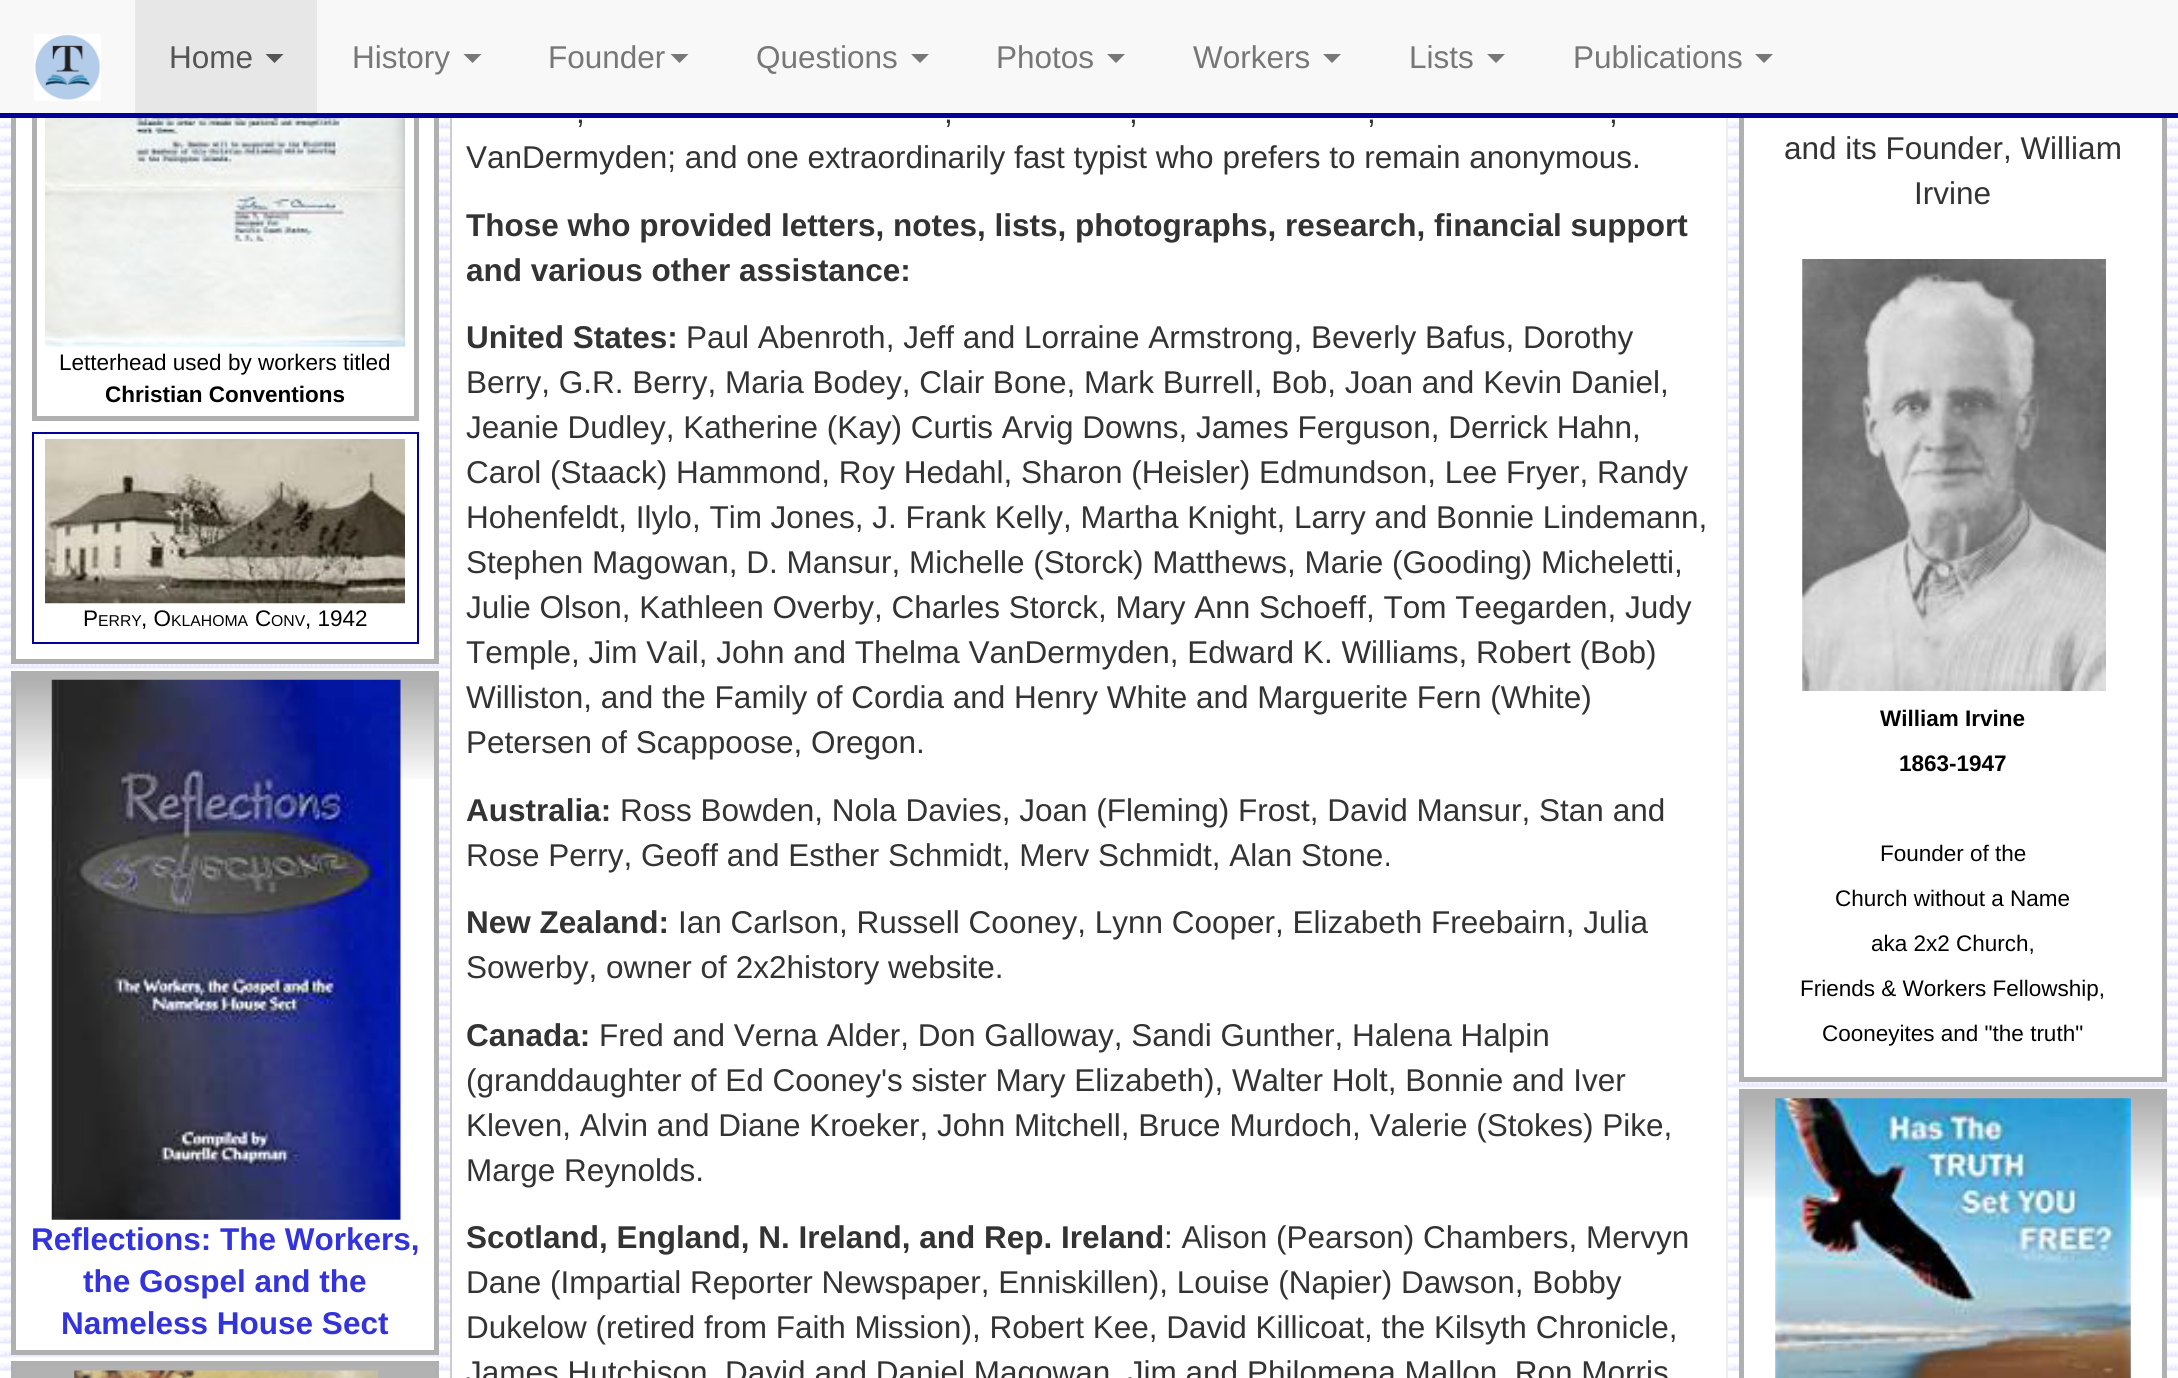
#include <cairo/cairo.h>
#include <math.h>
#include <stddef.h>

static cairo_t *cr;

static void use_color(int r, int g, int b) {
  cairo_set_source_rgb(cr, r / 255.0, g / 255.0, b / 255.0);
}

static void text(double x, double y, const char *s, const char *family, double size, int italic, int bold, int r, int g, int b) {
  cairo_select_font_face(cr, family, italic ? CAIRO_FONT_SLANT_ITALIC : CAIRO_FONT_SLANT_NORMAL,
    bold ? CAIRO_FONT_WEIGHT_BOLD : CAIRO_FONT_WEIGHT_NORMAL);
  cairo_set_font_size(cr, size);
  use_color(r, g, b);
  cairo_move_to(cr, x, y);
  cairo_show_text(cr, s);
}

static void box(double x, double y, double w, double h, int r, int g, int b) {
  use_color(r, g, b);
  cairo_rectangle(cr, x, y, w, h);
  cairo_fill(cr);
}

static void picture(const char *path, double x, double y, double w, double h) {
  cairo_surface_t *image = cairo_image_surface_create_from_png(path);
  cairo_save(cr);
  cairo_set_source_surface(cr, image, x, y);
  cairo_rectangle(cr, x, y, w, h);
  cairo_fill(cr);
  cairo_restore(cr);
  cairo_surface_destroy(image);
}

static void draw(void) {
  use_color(255, 255, 255);
  cairo_paint(cr);
  picture("img_02.png", 0, 118, 450, 1260);
  box(16, 121, 418, 535, 255, 255, 255);
  cairo_rectangle(cr, 13.5, -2.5, 423, 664);
  use_color(176, 176, 176);
  cairo_set_line_width(cr, 5);
  cairo_stroke(cr);
  cairo_rectangle(cr, 34.5, -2.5, 382, 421);
  cairo_stroke(cr);
  picture("img_08.png", 1728, 118, 450, 1260);
  box(1744, 121, 418, 953, 255, 255, 255);
  cairo_rectangle(cr, 1741.5, -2.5, 423, 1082);
  use_color(176, 176, 176);
  cairo_stroke(cr);
  box(0, 0, 2178, 113, 248, 248, 248);
  box(0, 113, 2178, 5, 4, 0, 154);
  picture("img_01.png", 34, 34, 67, 67);
  box(135, 0, 182, 113, 231, 231, 231);
  use_color(85, 85, 85);
  cairo_new_path(cr);
  cairo_move_to(cr, 265.5, 54);
  cairo_line_to(cr, 283.5, 54);
  cairo_line_to(cr, 274.5, 63);
  cairo_close_path(cr);
  cairo_fill(cr);
  use_color(119, 119, 119);
  cairo_new_path(cr);
  cairo_move_to(cr, 463.5, 54);
  cairo_line_to(cr, 481.5, 54);
  cairo_line_to(cr, 472.5, 63);
  cairo_close_path(cr);
  cairo_fill(cr);
  cairo_new_path(cr);
  cairo_move_to(cr, 670.5, 54);
  cairo_line_to(cr, 688.5, 54);
  cairo_line_to(cr, 679.5, 63);
  cairo_close_path(cr);
  cairo_fill(cr);
  cairo_new_path(cr);
  cairo_move_to(cr, 911, 54);
  cairo_line_to(cr, 929, 54);
  cairo_line_to(cr, 920, 63);
  cairo_close_path(cr);
  cairo_fill(cr);
  cairo_new_path(cr);
  cairo_move_to(cr, 1107, 54);
  cairo_line_to(cr, 1125, 54);
  cairo_line_to(cr, 1116, 63);
  cairo_close_path(cr);
  cairo_fill(cr);
  cairo_new_path(cr);
  cairo_move_to(cr, 1323, 54);
  cairo_line_to(cr, 1341, 54);
  cairo_line_to(cr, 1332, 63);
  cairo_close_path(cr);
  cairo_fill(cr);
  cairo_new_path(cr);
  cairo_move_to(cr, 1487, 54);
  cairo_line_to(cr, 1505, 54);
  cairo_line_to(cr, 1496, 63);
  cairo_close_path(cr);
  cairo_fill(cr);
  cairo_new_path(cr);
  cairo_move_to(cr, 1755, 54);
  cairo_line_to(cr, 1773, 54);
  cairo_line_to(cr, 1764, 63);
  cairo_close_path(cr);
  cairo_fill(cr);
  box(450, 118, 2, 1260, 204, 204, 204);
  picture("img_03.png", 45, 118, 360, 229);
  cairo_rectangle(cr, 33, 433, 385, 210);
  use_color(4, 0, 154);
  cairo_set_line_width(cr, 2);
  cairo_stroke(cr);
  picture("img_04.png", 45, 439, 360, 165);
  box(16, 783, 418, 561, 255, 255, 255);
  picture("img_05.png", 16, 676, 418, 103);
  cairo_rectangle(cr, 13.5, 673.5, 423, 679);
  use_color(176, 176, 176);
  cairo_set_line_width(cr, 5);
  cairo_stroke(cr);
  picture("img_06.png", 51, 679, 350, 541);
  use_color(178, 178, 178);
  cairo_rectangle(cr, 13.5, 1363.5, 423, 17);
  cairo_fill_preserve(cr);
  use_color(176, 176, 176);
  cairo_stroke(cr);
  picture("img_07.png", 74, 1370, 304, 8);
  box(1726, 118, 2, 1260, 238, 238, 238);
  picture("img_09.png", 1802, 259, 304, 432);
  box(1744, 1201, 418, 177, 255, 255, 255);
  picture("img_10.png", 1744, 1094, 418, 104);
  cairo_rectangle(cr, 1741.5, 1091.5, 423, 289);
  use_color(176, 176, 176);
  cairo_stroke(cr);
  picture("img_11.png", 1775, 1098, 356, 280);
  text(169, 68, "Home", "Liberation Sans", 31.5, 0, 0, 85, 85, 85);
  text(352, 68, "History", "Liberation Sans", 31.5, 0, 0, 119, 119, 119);
  text(548, 68, "Founder", "Liberation Sans", 31.5, 0, 0, 119, 119, 119);
  text(756, 68, "Questions", "Liberation Sans", 31.5, 0, 0, 119, 119, 119);
  text(996, 68, "Photos", "Liberation Sans", 31.5, 0, 0, 119, 119, 119);
  text(1193, 68, "Workers", "Liberation Sans", 31.5, 0, 0, 119, 119, 119);
  text(1409, 68, "Lists", "Liberation Sans", 31.5, 0, 0, 119, 119, 119);
  text(1573, 68, "Publications", "Liberation Sans", 31.5, 0, 0, 119, 119, 119);
  text(59, 370, "Letterhead used by workers titled", "Liberation Sans", 22.5, 0, 0, 0, 0, 0);
  text(105, 402, "Christian Conventions", "Liberation Sans", 22.5, 0, 1, 0, 0, 0);
  text(83, 626, "P", "Liberation Sans", 22.5, 0, 0, 0, 0, 0);
  text(98, 626, "ERRY", "Liberation Sans", 15.75, 0, 0, 0, 0, 0);
  text(141, 626, ", O", "Liberation Sans", 22.5, 0, 0, 0, 0, 0);
  text(171, 626, "KLAHOMA", "Liberation Sans", 15.75, 0, 0, 0, 0, 0);
  text(255, 626, "C", "Liberation Sans", 22.5, 0, 0, 0, 0, 0);
  text(271, 626, "ONV", "Liberation Sans", 15.75, 0, 0, 0, 0, 0);
  text(305, 626, ", 1942", "Liberation Sans", 22.5, 0, 0, 0, 0, 0);
  text(31, 1250, "Reflections: The Workers,", "Liberation Sans", 31.5, 0, 1, 51, 51, 221);
  text(83, 1292, "the Gospel and the", "Liberation Sans", 31.5, 0, 1, 51, 51, 221);
  text(61, 1334, "Nameless House Sect", "Liberation Sans", 31.5, 0, 1, 51, 51, 221);
  text(576, 123, ",", "Liberation Sans", 31.5, 0, 0, 51, 51, 51);
  text(944, 123, ",", "Liberation Sans", 31.5, 0, 0, 51, 51, 51);
  text(1129, 123, ",", "Liberation Sans", 31.5, 0, 0, 51, 51, 51);
  text(1367, 123, ",", "Liberation Sans", 31.5, 0, 0, 51, 51, 51);
  text(1609, 123, ",", "Liberation Sans", 31.5, 0, 0, 51, 51, 51);
  text(466, 168, "VanDermyden; and one extraordinarily fast typist who prefers to remain anonymous.", "Liberation Sans", 31.5, 0, 0, 51, 51, 51);
  text(466, 236, "Those who provided letters, notes, lists, photographs, research, financial support", "Liberation Sans", 31.5, 0, 1, 51, 51, 51);
  text(466, 281, "and various other assistance:", "Liberation Sans", 31.5, 0, 1, 51, 51, 51);
  text(466, 348, "United States:", "Liberation Sans", 31.5, 0, 1, 51, 51, 51);
  text(686, 348, "Paul Abenroth, Jeff and Lorraine Armstrong, Beverly Bafus, Dorothy", "Liberation Sans", 31.5, 0, 0, 51, 51, 51);
  text(466, 393, "Berry, G.R. Berry, Maria Bodey, Clair Bone, Mark Burrell, Bob, Joan and Kevin Daniel,", "Liberation Sans", 31.5, 0, 0, 51, 51, 51);
  text(466, 438, "Jeanie Dudley, Katherine (Kay) Curtis Arvig Downs, James Ferguson, Derrick Hahn,", "Liberation Sans", 31.5, 0, 0, 51, 51, 51);
  text(466, 483, "Carol (Staack) Hammond, Roy Hedahl, Sharon (Heisler) Edmundson, Lee Fryer, Randy", "Liberation Sans", 31.5, 0, 0, 51, 51, 51);
  text(466, 528, "Hohenfeldt, Ilylo, Tim Jones, J. Frank Kelly, Martha Knight, Larry and Bonnie Lindemann,", "Liberation Sans", 31.5, 0, 0, 51, 51, 51);
  text(466, 573, "Stephen Magowan, D. Mansur, Michelle (Storck) Matthews, Marie (Gooding) Micheletti,", "Liberation Sans", 31.5, 0, 0, 51, 51, 51);
  text(466, 618, "Julie Olson, Kathleen Overby, Charles Storck, Mary Ann Schoeff, Tom Teegarden, Judy", "Liberation Sans", 31.5, 0, 0, 51, 51, 51);
  text(466, 663, "Temple, Jim Vail, John and Thelma VanDermyden, Edward K. Williams, Robert (Bob)", "Liberation Sans", 31.5, 0, 0, 51, 51, 51);
  text(466, 708, "Williston, and the Family of Cordia and Henry White and Marguerite Fern (White)", "Liberation Sans", 31.5, 0, 0, 51, 51, 51);
  text(466, 753, "Petersen of Scappoose, Oregon.", "Liberation Sans", 31.5, 0, 0, 51, 51, 51);
  text(466, 821, "Australia:", "Liberation Sans", 31.5, 0, 1, 51, 51, 51);
  text(620, 821, "Ross Bowden, Nola Davies, Joan (Fleming) Frost, David Mansur, Stan and", "Liberation Sans", 31.5, 0, 0, 51, 51, 51);
  text(466, 866, "Rose Perry, Geoff and Esther Schmidt, Merv Schmidt, Alan Stone.", "Liberation Sans", 31.5, 0, 0, 51, 51, 51);
  text(466, 933, "New Zealand:", "Liberation Sans", 31.5, 0, 1, 51, 51, 51);
  text(678, 933, "Ian Carlson, Russell Cooney, Lynn Cooper, Elizabeth Freebairn, Julia", "Liberation Sans", 31.5, 0, 0, 51, 51, 51);
  text(466, 978, "Sowerby, owner of 2x2history website.", "Liberation Sans", 31.5, 0, 0, 51, 51, 51);
  text(466, 1046, "Canada:", "Liberation Sans", 31.5, 0, 1, 51, 51, 51);
  text(599, 1046, "Fred and Verna Alder, Don Galloway, Sandi Gunther, Halena Halpin", "Liberation Sans", 31.5, 0, 0, 51, 51, 51);
  text(466, 1091, "(granddaughter of Ed Cooney's sister Mary Elizabeth), Walter Holt, Bonnie and Iver", "Liberation Sans", 31.5, 0, 0, 51, 51, 51);
  text(466, 1136, "Kleven, Alvin and Diane Kroeker, John Mitchell, Bruce Murdoch, Valerie (Stokes) Pike,", "Liberation Sans", 31.5, 0, 0, 51, 51, 51);
  text(466, 1181, "Marge Reynolds.", "Liberation Sans", 31.5, 0, 0, 51, 51, 51);
  text(466, 1248, "Scotland, England, N. Ireland, and Rep. Ireland", "Liberation Sans", 31.5, 0, 1, 51, 51, 51);
  text(1164, 1248, ": Alison (Pearson) Chambers, Mervyn", "Liberation Sans", 31.5, 0, 0, 51, 51, 51);
  text(466, 1293, "Dane (Impartial Reporter Newspaper, Enniskillen), Louise (Napier) Dawson, Bobby", "Liberation Sans", 31.5, 0, 0, 51, 51, 51);
  text(466, 1338, "Dukelow (retired from Faith Mission), Robert Kee, David Killicoat, the Kilsyth Chronicle,", "Liberation Sans", 31.5, 0, 0, 51, 51, 51);
  text(466, 1383, "James Hutchison, David and Daniel Magowan, Jim and Philomena Mallon, Ron Morris", "Liberation Sans", 31.5, 0, 0, 51, 51, 51);
  text(1784, 159, "and its Founder, William", "Liberation Sans", 31.5, 0, 0, 51, 51, 51);
  text(1914, 204, "Irvine", "Liberation Sans", 31.5, 0, 0, 51, 51, 51);
  text(1880, 726, "William Irvine", "Liberation Sans", 22.5, 0, 1, 0, 0, 0);
  text(1899, 771, "1863-1947", "Liberation Sans", 22.5, 0, 1, 0, 0, 0);
  text(1880, 861, "Founder of the", "Liberation Sans", 22.5, 0, 0, 0, 0, 0);
  text(1835, 906, "Church without a Name", "Liberation Sans", 22.5, 0, 0, 0, 0, 0);
  text(1871, 951, "aka 2x2 Church,", "Liberation Sans", 22.5, 0, 0, 0, 0, 0);
  text(1800, 996, "Friends & Workers Fellowship,", "Liberation Sans", 22.5, 0, 0, 0, 0, 0);
  text(1822, 1041, "Cooneyites and \"the truth\"", "Liberation Sans", 22.5, 0, 0, 0, 0, 0);
}

int main(void) {
  cairo_surface_t *surface = cairo_image_surface_create(CAIRO_FORMAT_RGB24, 2178, 1378);
  cr = cairo_create(surface);
  cairo_font_options_t *options = cairo_font_options_create();
  cairo_font_options_set_hint_metrics(options, CAIRO_HINT_METRICS_OFF);
  cairo_font_options_set_hint_style(options, CAIRO_HINT_STYLE_NONE);
  cairo_set_font_options(cr, options);
  cairo_set_miter_limit(cr, 4);
  draw();
  cairo_surface_write_to_png(surface, "out.png");
  cairo_font_options_destroy(options);
  cairo_destroy(cr);
  cairo_surface_destroy(surface);
  return 0;
}
